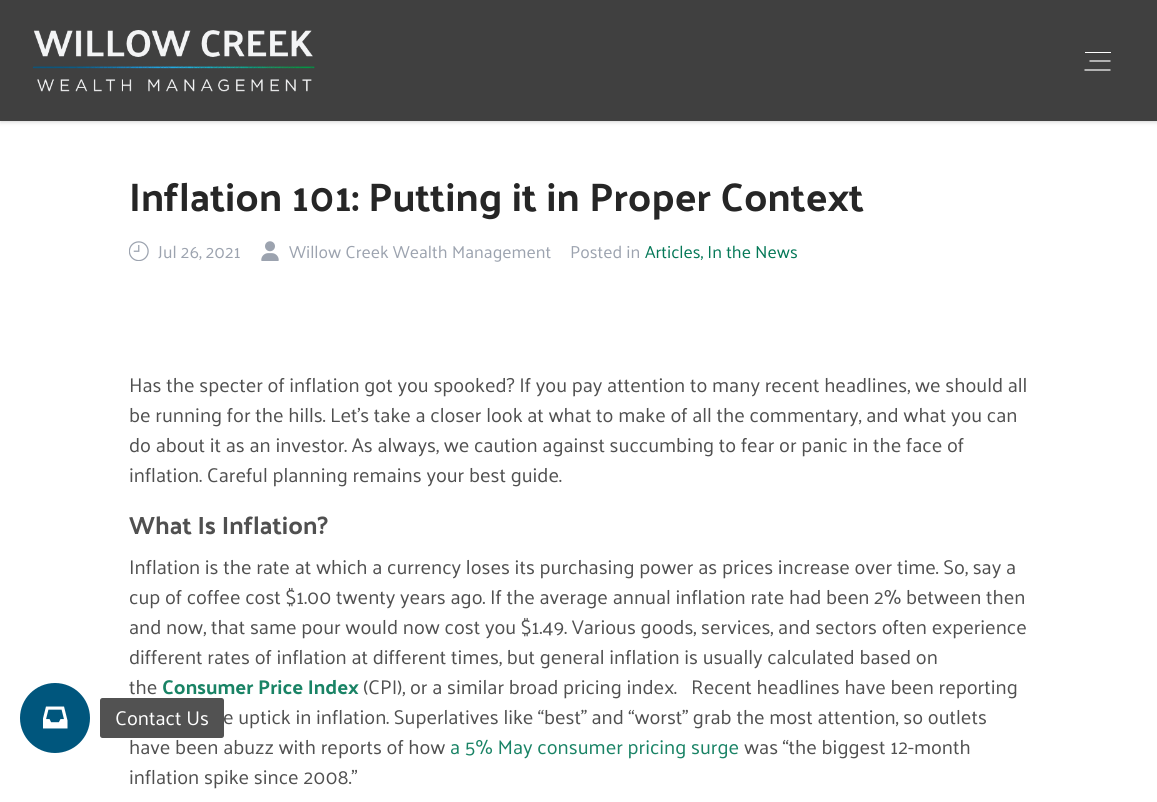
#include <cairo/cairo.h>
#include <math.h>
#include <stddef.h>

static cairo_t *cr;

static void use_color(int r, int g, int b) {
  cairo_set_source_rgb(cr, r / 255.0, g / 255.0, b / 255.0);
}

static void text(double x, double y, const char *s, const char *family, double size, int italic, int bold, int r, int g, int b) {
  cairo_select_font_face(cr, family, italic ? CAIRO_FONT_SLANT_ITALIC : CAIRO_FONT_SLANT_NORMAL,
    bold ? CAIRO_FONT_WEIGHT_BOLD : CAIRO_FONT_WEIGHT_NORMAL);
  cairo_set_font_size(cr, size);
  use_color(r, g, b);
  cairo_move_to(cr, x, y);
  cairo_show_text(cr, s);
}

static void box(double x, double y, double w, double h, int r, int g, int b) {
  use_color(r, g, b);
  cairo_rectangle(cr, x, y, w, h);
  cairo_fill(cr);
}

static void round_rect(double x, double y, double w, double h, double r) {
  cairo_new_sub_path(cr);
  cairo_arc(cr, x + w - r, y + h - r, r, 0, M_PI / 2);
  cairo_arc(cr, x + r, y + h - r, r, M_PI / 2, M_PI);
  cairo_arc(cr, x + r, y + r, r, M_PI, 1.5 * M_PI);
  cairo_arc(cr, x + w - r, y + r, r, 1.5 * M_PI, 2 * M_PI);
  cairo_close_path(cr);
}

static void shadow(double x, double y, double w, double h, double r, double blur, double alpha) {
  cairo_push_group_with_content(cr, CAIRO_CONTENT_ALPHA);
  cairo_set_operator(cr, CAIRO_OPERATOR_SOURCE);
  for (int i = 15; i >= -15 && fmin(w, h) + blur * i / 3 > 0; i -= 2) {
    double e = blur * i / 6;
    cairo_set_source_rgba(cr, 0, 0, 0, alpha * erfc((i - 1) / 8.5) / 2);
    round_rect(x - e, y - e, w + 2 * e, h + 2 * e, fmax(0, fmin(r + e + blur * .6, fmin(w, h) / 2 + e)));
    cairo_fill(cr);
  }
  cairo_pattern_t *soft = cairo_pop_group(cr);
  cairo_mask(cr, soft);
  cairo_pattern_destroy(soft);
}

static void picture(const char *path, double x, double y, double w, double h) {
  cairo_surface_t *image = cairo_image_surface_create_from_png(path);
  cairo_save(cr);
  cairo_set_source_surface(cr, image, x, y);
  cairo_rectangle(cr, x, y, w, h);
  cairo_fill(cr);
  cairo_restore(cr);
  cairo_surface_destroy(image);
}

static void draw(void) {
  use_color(255, 255, 255);
  cairo_paint(cr);
  use_color(0, 0, 0);
  shadow(1, 3, 1155, 118, 0, 1, 0.1);
  shadow(0, 1, 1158, 122, 0, 2, 0.1);
  box(0, 0, 1157, 121, 64, 64, 64);
  picture("img_01.png", 33, 30, 282, 62);
  box(1085, 52, 26, 1, 255, 255, 255);
  cairo_new_path(cr);
  cairo_move_to(cr, 1089.5, 61);
  cairo_line_to(cr, 1110.5, 61);
  cairo_move_to(cr, 1084.5, 70);
  cairo_line_to(cr, 1110.5, 70);
  cairo_set_line_width(cr, 1.2);
  cairo_stroke(cr);
  picture("img_02.png", 129, 241, 20, 20);
  picture("img_03.png", 261, 241, 18, 20);
  use_color(0, 86, 125);
  cairo_arc(cr, 55, 718, 35, 0, 2 * M_PI);
  cairo_fill(cr);
  picture("img_04.png", 43, 706, 25, 23);
  text(129, 211, "Inflation 101: Putting it in Proper Context", "Palanquin", 40, 0, 1, 38, 38, 38);
  text(158, 258, "Jul 26, 2021", "Palanquin", 17.5, 0, 0, 156, 163, 175);
  text(289, 258, "Willow Creek Wealth Management", "Palanquin", 17.5, 0, 0, 156, 163, 175);
  text(570, 258, "Posted in", "Palanquin", 17.5, 0, 0, 156, 163, 175);
  text(645, 258, "Articles, In the News", "Palanquin", 17.5, 0, 0, 4, 120, 87);
  text(129, 392, "Has the specter of inflation got you spooked? If you pay attention to many recent headlines, we should all", "Palanquin", 20, 0, 0, 80, 80, 80);
  text(129, 422, "be running for the hills. Let’s take a closer look at what to make of all the commentary, and what you can", "Palanquin", 20, 0, 0, 80, 80, 80);
  text(129, 452, "do about it as an investor. As always, we caution against succumbing to fear or panic in the face of", "Palanquin", 20, 0, 0, 80, 80, 80);
  text(129, 482, "inflation. Careful planning remains your best guide.", "Palanquin", 20, 0, 0, 80, 80, 80);
  text(129, 534, "What Is Inflation?", "Palanquin", 25, 0, 1, 80, 80, 80);
  text(129, 574, "Inflation is the rate at which a currency loses its purchasing power as prices increase over time. So, say a", "Palanquin", 20, 0, 0, 80, 80, 80);
  text(129, 604, "cup of coffee cost $1.00 twenty years ago. If the average annual inflation rate had been 2% between then", "Palanquin", 20, 0, 0, 80, 80, 80);
  text(129, 634, "and now, that same pour would now cost you $1.49. Various goods, services, and sectors often experience", "Palanquin", 20, 0, 0, 80, 80, 80);
  text(129, 664, "different rates of inflation at different times, but general inflation is usually calculated based on", "Palanquin", 20, 0, 0, 80, 80, 80);
  text(129, 694, "the", "Palanquin", 20, 0, 0, 80, 80, 80);
  text(162, 694, "Consumer Price Index", "Palanquin", 20, 0, 1, 25, 131, 101);
  text(363, 694, "(CPI), or a similar broad pricing index.   Recent headlines have been reporting", "Palanquin", 20, 0, 0, 80, 80, 80);
  text(223, 724, "e uptick in inflation. Superlatives like “best” and “worst” grab the most attention, so outlets", "Palanquin", 20, 0, 0, 80, 80, 80);
  text(129, 754, "have been abuzz with reports of how", "Palanquin", 20, 0, 0, 80, 80, 80);
  text(450, 754, "a 5% May consumer pricing surge", "Palanquin", 20, 0, 0, 25, 131, 101);
  text(744, 754, "was “the biggest 12-month", "Palanquin", 20, 0, 0, 80, 80, 80);
  text(129, 784, "inflation spike since 2008.”", "Palanquin", 20, 0, 0, 80, 80, 80);
  use_color(82, 82, 82);
  round_rect(100, 698, 124, 40, 2.5);
  cairo_fill(cr);
  text(115, 725, "Contact Us", "Palanquin", 20, 0, 0, 255, 255, 255);
}

int main(void) {
  cairo_surface_t *surface = cairo_image_surface_create(CAIRO_FORMAT_RGB24, 1157, 802);
  cr = cairo_create(surface);
  cairo_font_options_t *options = cairo_font_options_create();
  cairo_font_options_set_hint_metrics(options, CAIRO_HINT_METRICS_OFF);
  cairo_font_options_set_hint_style(options, CAIRO_HINT_STYLE_NONE);
  cairo_set_font_options(cr, options);
  cairo_set_miter_limit(cr, 4);
  draw();
  cairo_surface_write_to_png(surface, "out.png");
  cairo_font_options_destroy(options);
  cairo_destroy(cr);
  cairo_surface_destroy(surface);
  return 0;
}
